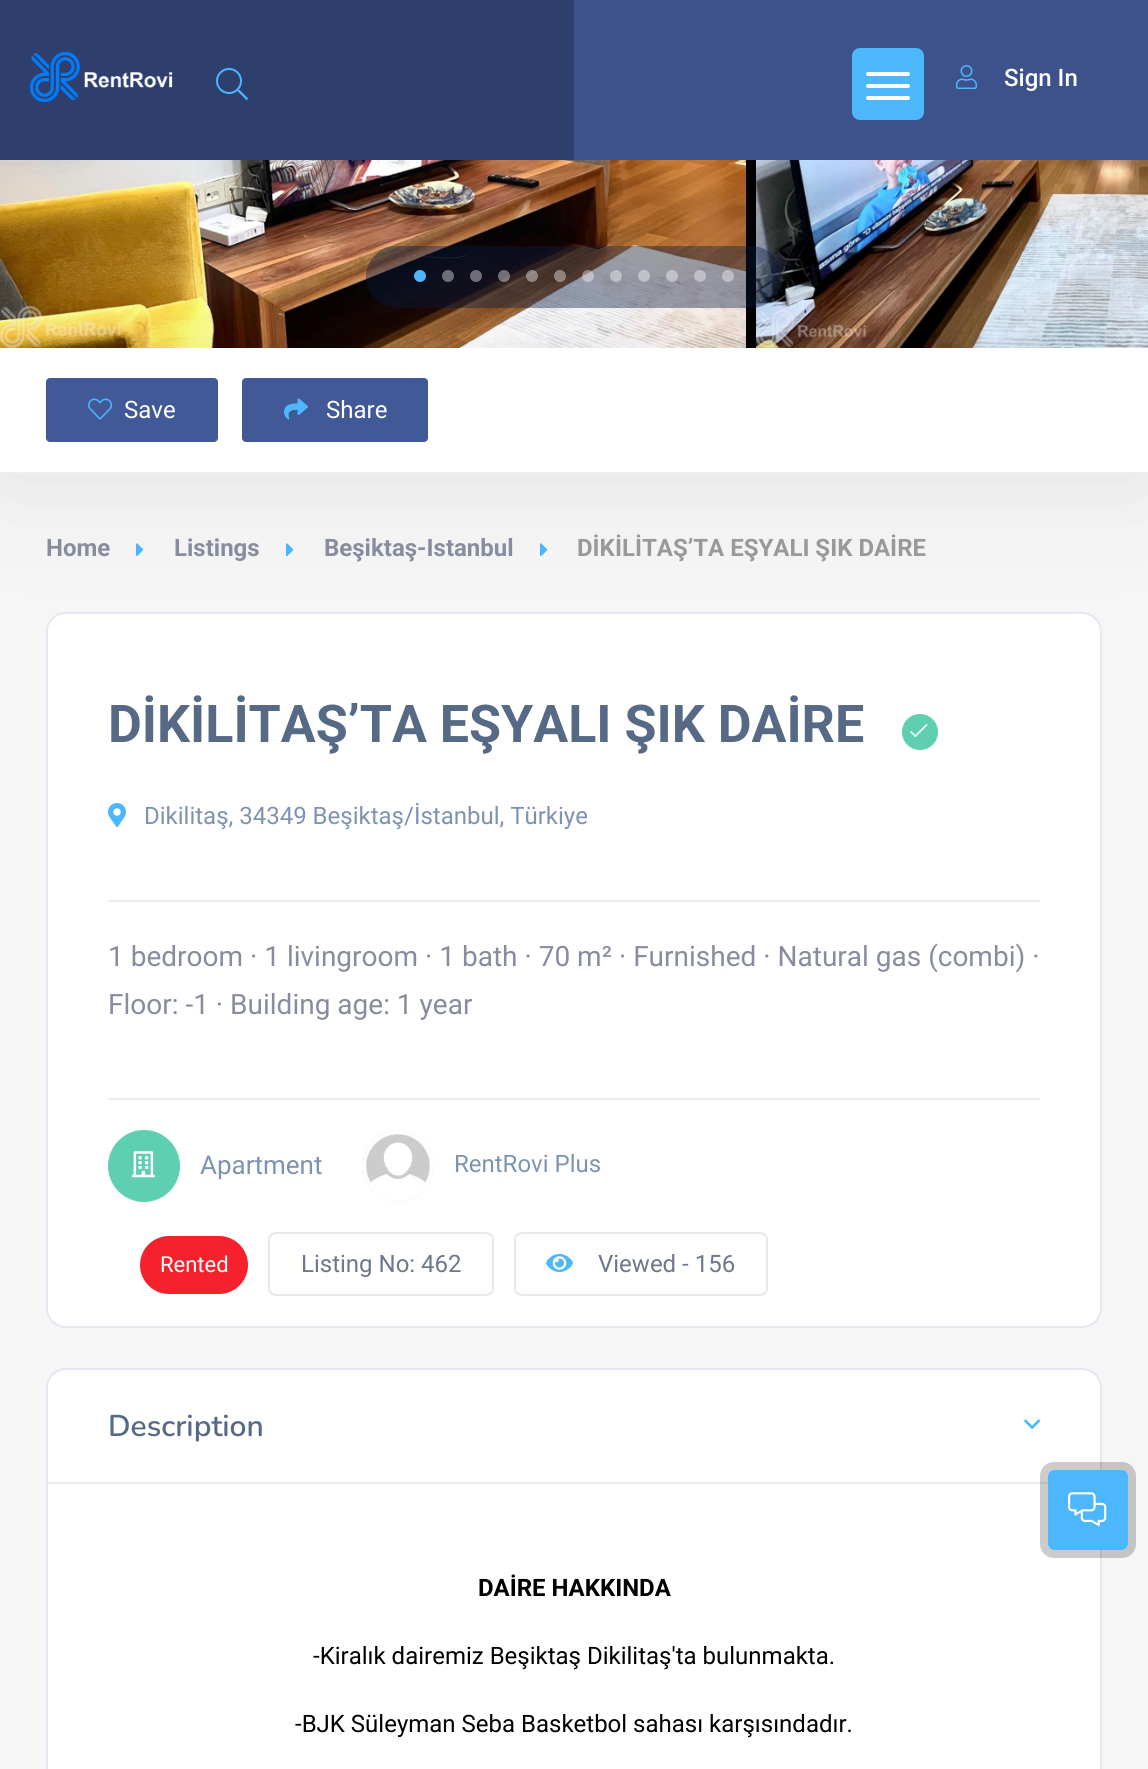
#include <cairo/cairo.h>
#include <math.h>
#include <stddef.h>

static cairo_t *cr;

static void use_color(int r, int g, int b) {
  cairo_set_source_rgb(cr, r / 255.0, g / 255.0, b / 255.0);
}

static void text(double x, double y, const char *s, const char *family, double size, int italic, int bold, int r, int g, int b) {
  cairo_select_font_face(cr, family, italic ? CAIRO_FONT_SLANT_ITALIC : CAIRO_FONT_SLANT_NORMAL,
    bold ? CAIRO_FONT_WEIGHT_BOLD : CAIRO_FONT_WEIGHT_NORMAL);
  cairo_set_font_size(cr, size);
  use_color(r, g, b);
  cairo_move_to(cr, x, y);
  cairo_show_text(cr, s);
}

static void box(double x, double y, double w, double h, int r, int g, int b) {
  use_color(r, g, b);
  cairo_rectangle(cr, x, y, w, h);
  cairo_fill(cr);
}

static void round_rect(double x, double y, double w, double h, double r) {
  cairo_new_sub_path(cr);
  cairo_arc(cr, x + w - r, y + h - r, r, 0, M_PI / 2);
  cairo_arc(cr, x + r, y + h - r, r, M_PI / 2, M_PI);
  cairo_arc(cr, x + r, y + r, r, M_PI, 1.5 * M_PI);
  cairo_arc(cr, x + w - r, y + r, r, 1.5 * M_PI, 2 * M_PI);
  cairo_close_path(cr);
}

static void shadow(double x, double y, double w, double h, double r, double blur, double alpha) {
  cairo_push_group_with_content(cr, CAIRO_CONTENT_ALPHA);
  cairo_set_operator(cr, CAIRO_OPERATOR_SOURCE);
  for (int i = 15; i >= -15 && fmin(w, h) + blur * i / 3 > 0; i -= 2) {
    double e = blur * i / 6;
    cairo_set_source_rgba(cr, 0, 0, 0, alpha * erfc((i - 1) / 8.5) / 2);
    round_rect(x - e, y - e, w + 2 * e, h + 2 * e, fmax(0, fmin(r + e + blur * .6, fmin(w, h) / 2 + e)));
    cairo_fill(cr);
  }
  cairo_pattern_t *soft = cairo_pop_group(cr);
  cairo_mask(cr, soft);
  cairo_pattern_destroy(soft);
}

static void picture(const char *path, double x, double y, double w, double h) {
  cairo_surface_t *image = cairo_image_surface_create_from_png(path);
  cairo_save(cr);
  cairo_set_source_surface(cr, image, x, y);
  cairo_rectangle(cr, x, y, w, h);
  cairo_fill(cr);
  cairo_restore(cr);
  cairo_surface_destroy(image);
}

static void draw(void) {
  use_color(255, 255, 255);
  cairo_paint(cr);
  picture("img_04.png", 0, 160, 746, 188);
  use_color(58, 87, 135);
  shadow(-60, 36, 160, 100, 50, 26, 0.45);
  box(746, 160, 10, 188, 0, 0, 0);
  picture("img_05.png", 756, 160, 392, 188);
  cairo_set_source_rgba(cr, 0.024, 0.106, 0.255, 0.4);
  round_rect(366, 246, 416, 62, 31);
  cairo_fill(cr);
  use_color(77, 183, 254);
  cairo_arc(cr, 420, 276, 6, 0, 2 * M_PI);
  cairo_fill(cr);
  cairo_set_source_rgba(cr, 1, 1, 1, 0.4);
  cairo_arc(cr, 448, 276, 6, 0, 2 * M_PI);
  cairo_fill(cr);
  cairo_arc(cr, 476, 276, 6, 0, 2 * M_PI);
  cairo_fill(cr);
  cairo_arc(cr, 504, 276, 6, 0, 2 * M_PI);
  cairo_fill(cr);
  cairo_arc(cr, 532, 276, 6, 0, 2 * M_PI);
  cairo_fill(cr);
  cairo_arc(cr, 560, 276, 6, 0, 2 * M_PI);
  cairo_fill(cr);
  cairo_arc(cr, 588, 276, 6, 0, 2 * M_PI);
  cairo_fill(cr);
  cairo_arc(cr, 616, 276, 6, 0, 2 * M_PI);
  cairo_fill(cr);
  cairo_arc(cr, 644, 276, 6, 0, 2 * M_PI);
  cairo_fill(cr);
  cairo_arc(cr, 672, 276, 6, 0, 2 * M_PI);
  cairo_fill(cr);
  cairo_arc(cr, 700, 276, 6, 0, 2 * M_PI);
  cairo_fill(cr);
  cairo_arc(cr, 728, 276, 6, 0, 2 * M_PI);
  cairo_fill(cr);
  box(0, 474, 1148, 1295, 246, 246, 246);
  picture("img_08.png", 136, 543, 8, 14);
  picture("img_08.png", 286, 543, 8, 14);
  picture("img_08.png", 540, 543, 8, 14);
  use_color(255, 255, 255);
  round_rect(47, 613, 1054, 714, 19);
  cairo_fill_preserve(cr);
  use_color(229, 231, 242);
  cairo_stroke(cr);
  cairo_save(cr);
  cairo_set_fill_rule(cr, CAIRO_FILL_RULE_EVEN_ODD);
  cairo_new_path(cr);
  cairo_move_to(cr, 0, 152);
  cairo_line_to(cr, 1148, 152);
  cairo_line_to(cr, 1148, 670);
  cairo_line_to(cr, 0, 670);
  cairo_close_path(cr);
  cairo_move_to(cr, 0, 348);
  cairo_line_to(cr, 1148, 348);
  cairo_line_to(cr, 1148, 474);
  cairo_line_to(cr, 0, 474);
  cairo_close_path(cr);
  cairo_clip(cr);
  use_color(0, 0, 0);
  shadow(0, 348, 1148, 126, 0, 65, 0.09);
  cairo_restore(cr);
  box(0, 0, 574, 160, 46, 63, 110);
  use_color(58, 87, 135);
  shadow(1048, 36, 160, 100, 50, 26, 0.45);
  box(574, 0, 574, 160, 61, 82, 139);
  picture("img_01.png", 30, 52, 143, 50);
  picture("img_02.png", 216, 68, 32, 32);
  use_color(77, 183, 254);
  round_rect(852, 48, 72, 72, 8);
  cairo_fill(cr);
  use_color(255, 255, 255);
  round_rect(866, 72, 44, 4, 2);
  cairo_fill(cr);
  round_rect(866, 84, 44, 4, 2);
  cairo_fill(cr);
  round_rect(866, 96, 44, 4, 2);
  cairo_fill(cr);
  picture("img_03.png", 956, 65, 21, 24);
  box(0, 472, 1148, 2, 238, 238, 238);
  use_color(66, 89, 152);
  round_rect(46, 378, 172, 64, 4);
  cairo_fill(cr);
  picture("img_06.png", 88, 398, 24, 22);
  round_rect(242, 378, 186, 64, 4);
  cairo_fill(cr);
  picture("img_07.png", 284, 398, 24, 22);
  use_color(94, 207, 177);
  cairo_arc(cr, 920, 732, 18, 0, 2 * M_PI);
  cairo_fill(cr);
  picture("img_09.png", 910, 724, 18, 13);
  picture("img_10.png", 108, 803, 18, 24);
  box(108, 900, 932, 2, 238, 238, 238);
  box(108, 1098, 932, 2, 238, 238, 238);
  use_color(94, 207, 177);
  cairo_arc(cr, 144, 1166, 36, 0, 2 * M_PI);
  cairo_fill(cr);
  picture("img_11.png", 132, 1151, 23, 27);
  picture("img_12.png", 362, 1130, 72, 72);
  use_color(245, 34, 45);
  round_rect(140, 1236, 108, 58, 29);
  cairo_fill(cr);
  round_rect(269, 1233, 224, 62, 7);
  use_color(231, 231, 237);
  cairo_stroke(cr);
  round_rect(515, 1233, 252, 62, 7);
  cairo_stroke(cr);
  picture("img_13.png", 546, 1254, 27, 18);
  use_color(255, 255, 255);
  round_rect(47, 1369, 1054, 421, 19);
  cairo_fill_preserve(cr);
  use_color(229, 231, 242);
  cairo_stroke(cr);
  box(48, 1482, 1000, 2, 238, 238, 238);
  picture("img_14.png", 1024, 1419, 17, 11);
  round_rect(1044, 1466, 88, 88, 10);
  cairo_set_source_rgba(cr, 0, 0, 0, 0.2);
  cairo_set_line_width(cr, 8);
  cairo_stroke(cr);
  use_color(77, 183, 254);
  round_rect(1048, 1470, 80, 80, 6);
  cairo_fill(cr);
  picture("img_15.png", 1068, 1492, 39, 35);
  text(1004, 86, "Sign In", "Roboto Medium", 24, 0, 0, 255, 255, 255);
  text(124, 418, "Save", "Roboto", 24, 0, 0, 255, 255, 255);
  text(326, 418, "Share", "Roboto", 24, 0, 0, 255, 255, 255);
  text(46, 556, "Home", "Roboto", 24, 0, 1, 135, 140, 159);
  text(174, 556, "Listings", "Roboto", 24, 0, 1, 135, 140, 159);
  text(324, 556, "Beşiktaş-Istanbul", "Roboto", 24, 0, 1, 135, 140, 159);
  text(577, 556, "DİKİLİTAŞ’TA EŞYALI ŞIK DAİRE", "Roboto", 24, 0, 1, 153, 153, 153);
  text(108, 742, "DİKİLİTAŞ’TA EŞYALI ŞIK DAİRE", "Roboto", 52, 0, 1, 86, 105, 133);
  text(144, 824, "Dikilitaş, 34349 Beşiktaş/İstanbul, Türkiye", "Roboto", 24, 0, 0, 125, 147, 178);
  text(108, 966, "1 bedroom · 1 livingroom · 1 bath · 70 m² · Furnished · Natural gas (combi) ·", "Roboto", 28, 0, 0, 135, 140, 159);
  text(108, 1014, "Floor: -1 · Building age: 1 year", "Roboto", 28, 0, 0, 135, 140, 159);
  text(200, 1174, "Apartment", "Roboto", 26, 0, 0, 125, 147, 178);
  text(454, 1172, "RentRovi Plus", "Roboto", 24, 0, 0, 125, 147, 178);
  text(160, 1272, "Rented", "Roboto", 22, 0, 0, 255, 255, 255);
  text(301, 1272, "Listing No: 462", "Roboto", 24, 0, 0, 112, 119, 139);
  text(598, 1272, "Viewed - 156", "Roboto", 24, 0, 0, 112, 119, 139);
  text(108, 1436, "Description", "Nunito SemiBold", 30, 0, 0, 86, 105, 133);
  text(478, 1596, "DAİRE HAKKINDA", "Roboto", 24, 0, 1, 0, 0, 0);
  text(313, 1664, "-Kiralık dairemiz Beşiktaş Dikilitaş'ta bulunmakta.", "Roboto", 24, 0, 0, 0, 0, 0);
  text(295, 1732, "-BJK Süleyman Seba Basketbol sahası karşısındadır.", "Roboto", 24, 0, 0, 0, 0, 0);
}

int main(void) {
  cairo_surface_t *surface = cairo_image_surface_create(CAIRO_FORMAT_RGB24, 1148, 1769);
  cr = cairo_create(surface);
  cairo_font_options_t *options = cairo_font_options_create();
  cairo_font_options_set_hint_metrics(options, CAIRO_HINT_METRICS_OFF);
  cairo_font_options_set_hint_style(options, CAIRO_HINT_STYLE_NONE);
  cairo_set_font_options(cr, options);
  cairo_set_miter_limit(cr, 4);
  draw();
  cairo_surface_write_to_png(surface, "out.png");
  cairo_font_options_destroy(options);
  cairo_destroy(cr);
  cairo_surface_destroy(surface);
  return 0;
}
